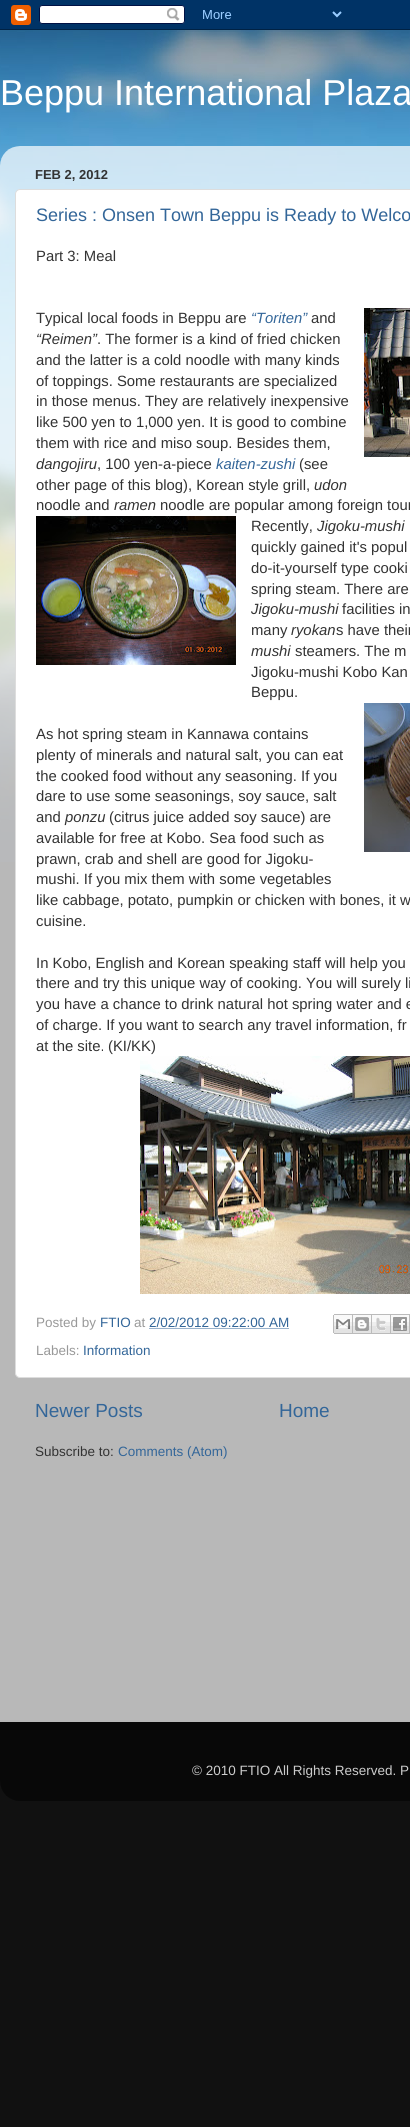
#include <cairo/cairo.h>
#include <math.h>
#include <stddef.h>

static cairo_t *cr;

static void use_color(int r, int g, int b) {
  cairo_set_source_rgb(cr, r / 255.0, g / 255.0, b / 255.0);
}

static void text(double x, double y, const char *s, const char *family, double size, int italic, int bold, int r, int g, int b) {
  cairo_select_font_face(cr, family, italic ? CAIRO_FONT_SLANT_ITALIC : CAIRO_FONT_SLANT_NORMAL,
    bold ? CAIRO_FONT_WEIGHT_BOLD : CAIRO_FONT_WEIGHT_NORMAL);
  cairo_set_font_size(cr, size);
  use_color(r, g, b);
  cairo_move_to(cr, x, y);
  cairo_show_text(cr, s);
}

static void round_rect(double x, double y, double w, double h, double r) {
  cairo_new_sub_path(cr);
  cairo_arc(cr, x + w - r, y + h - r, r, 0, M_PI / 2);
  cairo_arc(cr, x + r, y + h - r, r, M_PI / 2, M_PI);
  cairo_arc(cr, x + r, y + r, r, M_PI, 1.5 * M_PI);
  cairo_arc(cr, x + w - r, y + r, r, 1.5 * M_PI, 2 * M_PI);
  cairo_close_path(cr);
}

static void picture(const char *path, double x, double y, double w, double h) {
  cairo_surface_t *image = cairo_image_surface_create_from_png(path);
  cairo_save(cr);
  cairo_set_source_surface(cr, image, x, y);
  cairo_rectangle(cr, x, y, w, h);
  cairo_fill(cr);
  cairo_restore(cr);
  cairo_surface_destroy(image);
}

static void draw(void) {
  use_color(17, 17, 17);
  cairo_paint(cr);
  picture("img_01.png", 0, 30, 410, 832);
  picture("img_02.png", 0, 0, 410, 30);
  picture("img_03.png", 0, 146, 410, 1576);
  use_color(255, 255, 255);
  round_rect(15.5, 189.5, 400, 1188, 4.5);
  cairo_fill_preserve(cr);
  use_color(221, 221, 221);
  cairo_set_line_width(cr, 1);
  cairo_stroke(cr);
  picture("img_04.png", 364, 308, 46, 149);
  picture("img_05.png", 36, 516, 200, 149);
  picture("img_06.png", 364, 703, 46, 149);
  picture("img_07.png", 140, 1056, 270, 238);
  cairo_new_path(cr);
  cairo_move_to(cr, 149.5, 1328.5);
  cairo_line_to(cr, 289.5, 1328.5);
  use_color(51, 102, 153);
  cairo_set_dash(cr, (double[]){1, 1}, 2, 0);
  cairo_stroke(cr);
  picture("img_08.png", 333, 1314, 20, 20);
  picture("img_09.png", 353, 1314, 19, 20);
  picture("img_10.png", 372, 1314, 19, 20);
  picture("img_11.png", 391, 1314, 19, 20);
  picture("img_12.png", 0, 1722, 410, 79);
  text(0, 105, "Beppu International Plaza", "Liberation Sans", 36, 0, 0, 255, 255, 255);
  text(35, 179, "FEB 2, 2012", "Liberation Sans", 13, 0, 1, 51, 51, 51);
  text(36, 221, "Series : Onsen Town Beppu is Ready to Welco", "Liberation Sans", 18, 0, 0, 51, 102, 153);
  text(36, 261, "Part 3: Meal", "Liberation Sans", 14.85, 0, 0, 51, 51, 51);
  text(36, 323, "Typical local foods in Beppu are", "Liberation Sans", 14.85, 0, 0, 51, 51, 51);
  text(251, 323, "“Toriten”", "Liberation Sans", 14.85, 1, 0, 51, 102, 153);
  text(311, 323, "and", "Liberation Sans", 14.85, 0, 0, 51, 51, 51);
  text(36, 344, "“Reimen”", "Liberation Sans", 14.85, 1, 0, 51, 51, 51);
  text(97, 344, ". The former is a kind of fried chicken", "Liberation Sans", 14.85, 0, 0, 51, 51, 51);
  text(36, 365, "and the latter is a cold noodle with many kinds", "Liberation Sans", 14.85, 0, 0, 51, 51, 51);
  text(36, 386, "of toppings. Some restaurants are specialized", "Liberation Sans", 14.85, 0, 0, 51, 51, 51);
  text(36, 406, "in those menus. They are relatively inexpensive", "Liberation Sans", 14.85, 0, 0, 51, 51, 51);
  text(36, 427, "like 500 yen to 1,000 yen. It is good to combine", "Liberation Sans", 14.85, 0, 0, 51, 51, 51);
  text(36, 448, "them with rice and miso soup. Besides them,", "Liberation Sans", 14.85, 0, 0, 51, 51, 51);
  text(36, 469, "dangojiru", "Liberation Sans", 14.85, 1, 0, 51, 51, 51);
  text(97, 469, ", 100 yen-a-piece", "Liberation Sans", 14.85, 0, 0, 51, 51, 51);
  text(216, 469, "kaiten-zushi", "Liberation Sans", 14.85, 1, 0, 51, 102, 153);
  text(299, 469, "(see", "Liberation Sans", 14.85, 0, 0, 51, 51, 51);
  text(36, 490, "other page of this blog), Korean style grill,", "Liberation Sans", 14.85, 0, 0, 51, 51, 51);
  text(314, 490, "udon", "Liberation Sans", 14.85, 1, 0, 51, 51, 51);
  text(36, 510, "noodle and", "Liberation Sans", 14.85, 0, 0, 51, 51, 51);
  text(114, 510, "ramen", "Liberation Sans", 14.85, 1, 0, 51, 51, 51);
  text(160, 510, "noodle are popular among foreign tour", "Liberation Sans", 14.85, 0, 0, 51, 51, 51);
  text(251, 531, "Recently,", "Liberation Sans", 14.85, 0, 0, 51, 51, 51);
  text(317, 531, "Jigoku-mushi", "Liberation Sans", 14.85, 1, 0, 51, 51, 51);
  text(251, 552, "quickly gained it's popul", "Liberation Sans", 14.85, 0, 0, 51, 51, 51);
  text(251, 573, "do-it-yourself type cooki", "Liberation Sans", 14.85, 0, 0, 51, 51, 51);
  text(251, 594, "spring steam. There are", "Liberation Sans", 14.85, 0, 0, 51, 51, 51);
  text(251, 614, "Jigoku-mushi", "Liberation Sans", 14.85, 1, 0, 51, 51, 51);
  text(342, 614, "facilities in", "Liberation Sans", 14.85, 0, 0, 51, 51, 51);
  text(251, 635, "many", "Liberation Sans", 14.85, 0, 0, 51, 51, 51);
  text(291, 635, "ryokan", "Liberation Sans", 14.85, 1, 0, 51, 51, 51);
  text(336, 635, "s have their", "Liberation Sans", 14.85, 0, 0, 51, 51, 51);
  text(251, 656, "mushi", "Liberation Sans", 14.85, 1, 0, 51, 51, 51);
  text(295, 656, "steamers. The m", "Liberation Sans", 14.85, 0, 0, 51, 51, 51);
  text(251, 677, "Jigoku-mushi Kobo Kan", "Liberation Sans", 14.85, 0, 0, 51, 51, 51);
  text(251, 697, "Beppu.", "Liberation Sans", 14.85, 0, 0, 51, 51, 51);
  text(36, 739, "As hot spring steam in Kannawa contains", "Liberation Sans", 14.85, 0, 0, 51, 51, 51);
  text(36, 760, "plenty of minerals and natural salt, you can eat", "Liberation Sans", 14.85, 0, 0, 51, 51, 51);
  text(36, 781, "the cooked food without any seasoning. If you", "Liberation Sans", 14.85, 0, 0, 51, 51, 51);
  text(36, 801, "dare to use some seasonings, soy sauce, salt", "Liberation Sans", 14.85, 0, 0, 51, 51, 51);
  text(36, 822, "and", "Liberation Sans", 14.85, 0, 0, 51, 51, 51);
  text(65, 822, "ponzu", "Liberation Sans", 14.85, 1, 0, 51, 51, 51);
  text(109, 822, "(citrus juice added soy sauce) are", "Liberation Sans", 14.85, 0, 0, 51, 51, 51);
  text(36, 843, "available for free at Kobo. Sea food such as", "Liberation Sans", 14.85, 0, 0, 51, 51, 51);
  text(36, 864, "prawn, crab and shell are good for Jigoku-", "Liberation Sans", 14.85, 0, 0, 51, 51, 51);
  text(36, 884, "mushi. If you mix them with some vegetables", "Liberation Sans", 14.85, 0, 0, 51, 51, 51);
  text(36, 905, "like cabbage, potato, pumpkin or chicken with bones, it w", "Liberation Sans", 14.85, 0, 0, 51, 51, 51);
  text(36, 926, "cuisine.", "Liberation Sans", 14.85, 0, 0, 51, 51, 51);
  text(36, 968, "In Kobo, English and Korean speaking staff will help you", "Liberation Sans", 14.85, 0, 0, 51, 51, 51);
  text(36, 988, "there and try this unique way of cooking. You will surely li", "Liberation Sans", 14.85, 0, 0, 51, 51, 51);
  text(36, 1009, "you have a chance to drink natural hot spring water and e", "Liberation Sans", 14.85, 0, 0, 51, 51, 51);
  text(36, 1030, "of charge. If you want to search any travel information, fr", "Liberation Sans", 14.85, 0, 0, 51, 51, 51);
  text(36, 1051, "at the site.", "Liberation Sans", 14.85, 0, 0, 51, 51, 51);
  text(108, 1051, "(KI/KK)", "Liberation Sans", 14.85, 0, 0, 51, 51, 51);
  text(36, 1327, "Posted by", "Liberation Sans", 13.5, 0, 0, 153, 153, 153);
  text(100, 1327, "FTIO", "Liberation Sans", 13.5, 0, 0, 51, 102, 153);
  text(134, 1327, "at", "Liberation Sans", 13.5, 0, 0, 153, 153, 153);
  text(149, 1327, "2/02/2012 09:22:00 AM", "Liberation Sans", 13.5, 0, 0, 51, 102, 153);
  text(36, 1355, "Labels:", "Liberation Sans", 13.5, 0, 0, 153, 153, 153);
  text(83, 1355, "Information", "Liberation Sans", 13.5, 0, 0, 51, 102, 153);
  text(35, 1417, "Newer Posts", "Liberation Sans", 19, 0, 0, 51, 102, 153);
  text(279, 1417, "Home", "Liberation Sans", 19, 0, 0, 51, 102, 153);
  text(35, 1456, "Subscribe to:", "Liberation Sans", 13.5, 0, 0, 51, 51, 51);
  text(118, 1456, "Comments (Atom)", "Liberation Sans", 13.5, 0, 0, 51, 102, 153);
  text(192, 1775, "© 2010 FTIO All Rights Reserved. P", "Liberation Sans", 13.5, 0, 0, 204, 204, 204);
}

int main(void) {
  cairo_surface_t *surface = cairo_image_surface_create(CAIRO_FORMAT_RGB24, 410, 2127);
  cr = cairo_create(surface);
  cairo_font_options_t *options = cairo_font_options_create();
  cairo_font_options_set_hint_metrics(options, CAIRO_HINT_METRICS_OFF);
  cairo_font_options_set_hint_style(options, CAIRO_HINT_STYLE_NONE);
  cairo_set_font_options(cr, options);
  cairo_set_miter_limit(cr, 4);
  draw();
  cairo_surface_write_to_png(surface, "out.png");
  cairo_font_options_destroy(options);
  cairo_destroy(cr);
  cairo_surface_destroy(surface);
  return 0;
}
